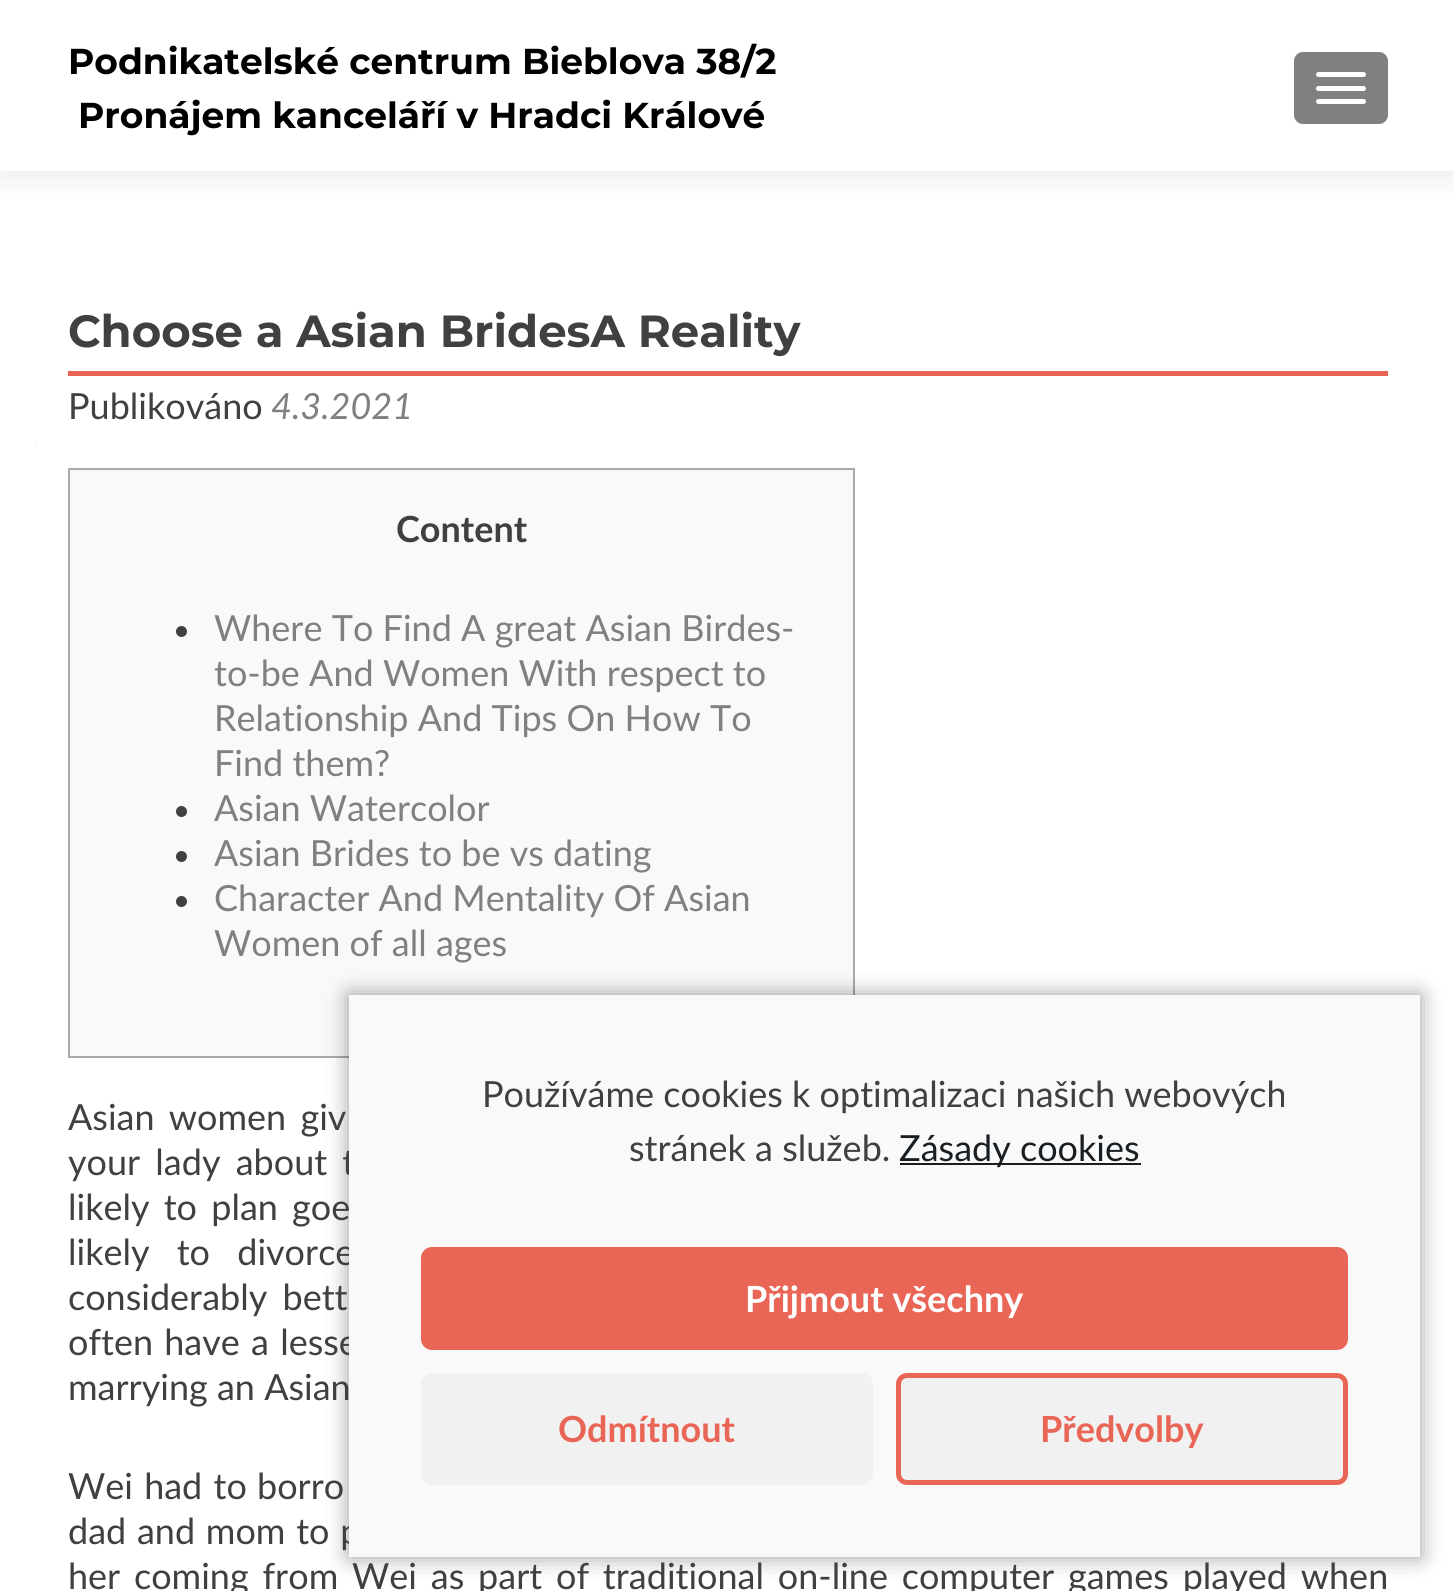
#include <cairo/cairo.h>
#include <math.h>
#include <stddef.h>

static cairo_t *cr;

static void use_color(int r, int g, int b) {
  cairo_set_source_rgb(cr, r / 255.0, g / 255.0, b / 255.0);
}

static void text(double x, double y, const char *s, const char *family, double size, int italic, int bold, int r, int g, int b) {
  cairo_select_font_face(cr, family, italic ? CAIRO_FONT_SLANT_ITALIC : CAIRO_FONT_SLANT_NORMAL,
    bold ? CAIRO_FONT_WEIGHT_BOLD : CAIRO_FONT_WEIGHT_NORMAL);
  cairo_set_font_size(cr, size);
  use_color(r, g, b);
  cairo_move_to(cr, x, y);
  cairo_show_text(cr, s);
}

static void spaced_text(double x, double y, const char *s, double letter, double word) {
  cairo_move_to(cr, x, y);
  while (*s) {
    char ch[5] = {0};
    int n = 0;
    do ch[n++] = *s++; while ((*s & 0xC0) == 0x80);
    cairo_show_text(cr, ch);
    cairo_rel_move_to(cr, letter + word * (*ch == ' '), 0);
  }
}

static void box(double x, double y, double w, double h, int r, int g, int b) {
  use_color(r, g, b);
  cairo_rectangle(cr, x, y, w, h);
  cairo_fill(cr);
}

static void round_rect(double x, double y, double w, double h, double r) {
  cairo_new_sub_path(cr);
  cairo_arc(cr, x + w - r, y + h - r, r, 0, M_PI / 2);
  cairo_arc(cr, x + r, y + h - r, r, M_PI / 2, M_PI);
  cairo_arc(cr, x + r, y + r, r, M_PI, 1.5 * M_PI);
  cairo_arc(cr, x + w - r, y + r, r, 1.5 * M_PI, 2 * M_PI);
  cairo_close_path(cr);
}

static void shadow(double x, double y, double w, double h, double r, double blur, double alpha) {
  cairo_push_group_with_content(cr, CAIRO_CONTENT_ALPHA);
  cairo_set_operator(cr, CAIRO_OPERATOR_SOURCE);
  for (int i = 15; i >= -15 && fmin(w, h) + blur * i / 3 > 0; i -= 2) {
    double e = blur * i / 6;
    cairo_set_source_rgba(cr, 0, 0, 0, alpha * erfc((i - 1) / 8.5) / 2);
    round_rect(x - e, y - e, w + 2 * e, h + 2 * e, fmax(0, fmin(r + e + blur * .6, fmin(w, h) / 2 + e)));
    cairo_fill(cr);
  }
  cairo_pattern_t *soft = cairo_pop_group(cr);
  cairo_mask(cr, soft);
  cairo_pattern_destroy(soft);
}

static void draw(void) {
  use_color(255, 255, 255);
  cairo_paint(cr);
  use_color(50, 50, 50);
  shadow(0, 11, 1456, 171, 0, 12.5, 0.08);
  box(0, 0, 1454, 171, 255, 255, 255);
  use_color(128, 128, 128);
  round_rect(1294, 52, 94, 72, 9);
  cairo_fill(cr);
  use_color(255, 255, 255);
  round_rect(1316, 72, 50, 5, 2.5);
  cairo_fill(cr);
  round_rect(1316, 86, 50, 5, 2.5);
  cairo_fill(cr);
  round_rect(1316, 99, 50, 5, 2.5);
  cairo_fill(cr);
  box(34, 441, 2, 2, 242, 242, 242);
  box(68, 371, 1320, 5, 233, 102, 86);
  use_color(249, 249, 249);
  cairo_rectangle(cr, 69, 469, 785, 588);
  cairo_fill_preserve(cr);
  use_color(170, 170, 170);
  cairo_stroke(cr);
  use_color(64, 64, 64);
  cairo_arc(cr, 181.5, 631.5, 5.5, 0, 2 * M_PI);
  cairo_fill(cr);
  cairo_arc(cr, 181.5, 811.5, 5.5, 0, 2 * M_PI);
  cairo_fill(cr);
  cairo_arc(cr, 181.5, 856.5, 5.5, 0, 2 * M_PI);
  cairo_fill(cr);
  cairo_arc(cr, 181.5, 901.5, 5.5, 0, 2 * M_PI);
  cairo_fill(cr);
  use_color(0, 0, 0);
  shadow(349, 995, 1071, 562, 0, 11, 0.4);
  text(68, 74, "Podnikatelské centrum Bieblova 38/2", "Montserrat", 36, 0, 1, 0, 0, 0);
  text(78, 128, "Pronájem kanceláří v Hradci Králové", "Montserrat", 36, 0, 1, 0, 0, 0);
  text(68, 347, "Choose a Asian BridesA Reality", "Montserrat", 45, 0, 1, 64, 64, 64);
  text(68, 419, "Publikováno", "Lato", 36, 0, 0, 64, 64, 64);
  text(271, 419, "4.3.2021", "Lato", 36, 1, 0, 128, 128, 128);
  text(396, 542, "Content", "Lato", 36, 0, 1, 64, 64, 64);
  text(214, 641, "Where To Find A great Asian Birdes-", "Lato", 36, 0, 0, 128, 128, 128);
  text(214, 686, "to-be And Women With respect to", "Lato", 36, 0, 0, 128, 128, 128);
  text(214, 731, "Relationship And Tips On How To", "Lato", 36, 0, 0, 128, 128, 128);
  text(214, 776, "Find them?", "Lato", 36, 0, 0, 128, 128, 128);
  text(214, 821, "Asian Watercolor", "Lato", 36, 0, 0, 128, 128, 128);
  text(214, 866, "Asian Brides to be vs dating", "Lato", 36, 0, 0, 128, 128, 128);
  text(214, 911, "Character And Mentality Of Asian", "Lato", 36, 0, 0, 128, 128, 128);
  text(214, 956, "Women of all ages", "Lato", 36, 0, 0, 128, 128, 128);
  use_color(64, 64, 64);
  spaced_text(68, 1130, "Asian women giv", 0, 5);
  spaced_text(68, 1175, "your lady about t", 0, 6);
  spaced_text(68, 1220, "likely to plan goe", 0, 5);
  spaced_text(68, 1265, "likely to divorce", 0, 18);
  spaced_text(68, 1310, "considerably bett", 0, 6);
  spaced_text(68, 1355, "often have a lesse", 0, 2);
  text(68, 1400, "marrying an Asian", "Lato", 36, 0, 0, 64, 64, 64);
  spaced_text(68, 1499, "Wei had to", 0, 2);
  spaced_text(257, 1499, "borro", 0, 2);
  spaced_text(68, 1544, "dad and mom to p", 0, 1.5);
  spaced_text(68, 1589, "her coming from Wei as part of traditional on-line computer games played when", 0, 4.6);
  box(349, 995, 1071, 562, 249, 249, 249);
  text(482, 1107, "Používáme cookies k optimalizaci našich webových", "Lato", 36, 0, 0, 64, 64, 64);
  text(629, 1161, "stránek a služeb.", "Lato", 36, 0, 0, 64, 64, 64);
  box(900, 1163, 241, 2, 25, 30, 34);
  text(899, 1161, "Zásady cookies", "Lato", 36, 0, 0, 25, 30, 34);
  use_color(233, 102, 86);
  round_rect(421, 1247, 927, 103, 11);
  cairo_fill(cr);
  text(745, 1312, "Přijmout všechny", "Lato", 36, 0, 1, 255, 255, 255);
  use_color(241, 241, 241);
  round_rect(421, 1373, 452, 112, 11);
  cairo_fill(cr);
  text(558, 1442, "Odmítnout", "Lato", 36, 0, 1, 233, 102, 86);
  use_color(241, 241, 241);
  round_rect(898.5, 1375.5, 447, 107, 8.5);
  cairo_fill_preserve(cr);
  use_color(233, 102, 86);
  cairo_set_line_width(cr, 5);
  cairo_stroke(cr);
  text(1040, 1442, "Předvolby", "Lato", 36, 0, 1, 233, 102, 86);
}

int main(void) {
  cairo_surface_t *surface = cairo_image_surface_create(CAIRO_FORMAT_RGB24, 1454, 1591);
  cr = cairo_create(surface);
  cairo_font_options_t *options = cairo_font_options_create();
  cairo_font_options_set_hint_metrics(options, CAIRO_HINT_METRICS_OFF);
  cairo_font_options_set_hint_style(options, CAIRO_HINT_STYLE_NONE);
  cairo_set_font_options(cr, options);
  cairo_set_miter_limit(cr, 4);
  draw();
  cairo_surface_write_to_png(surface, "out.png");
  cairo_font_options_destroy(options);
  cairo_destroy(cr);
  cairo_surface_destroy(surface);
  return 0;
}
